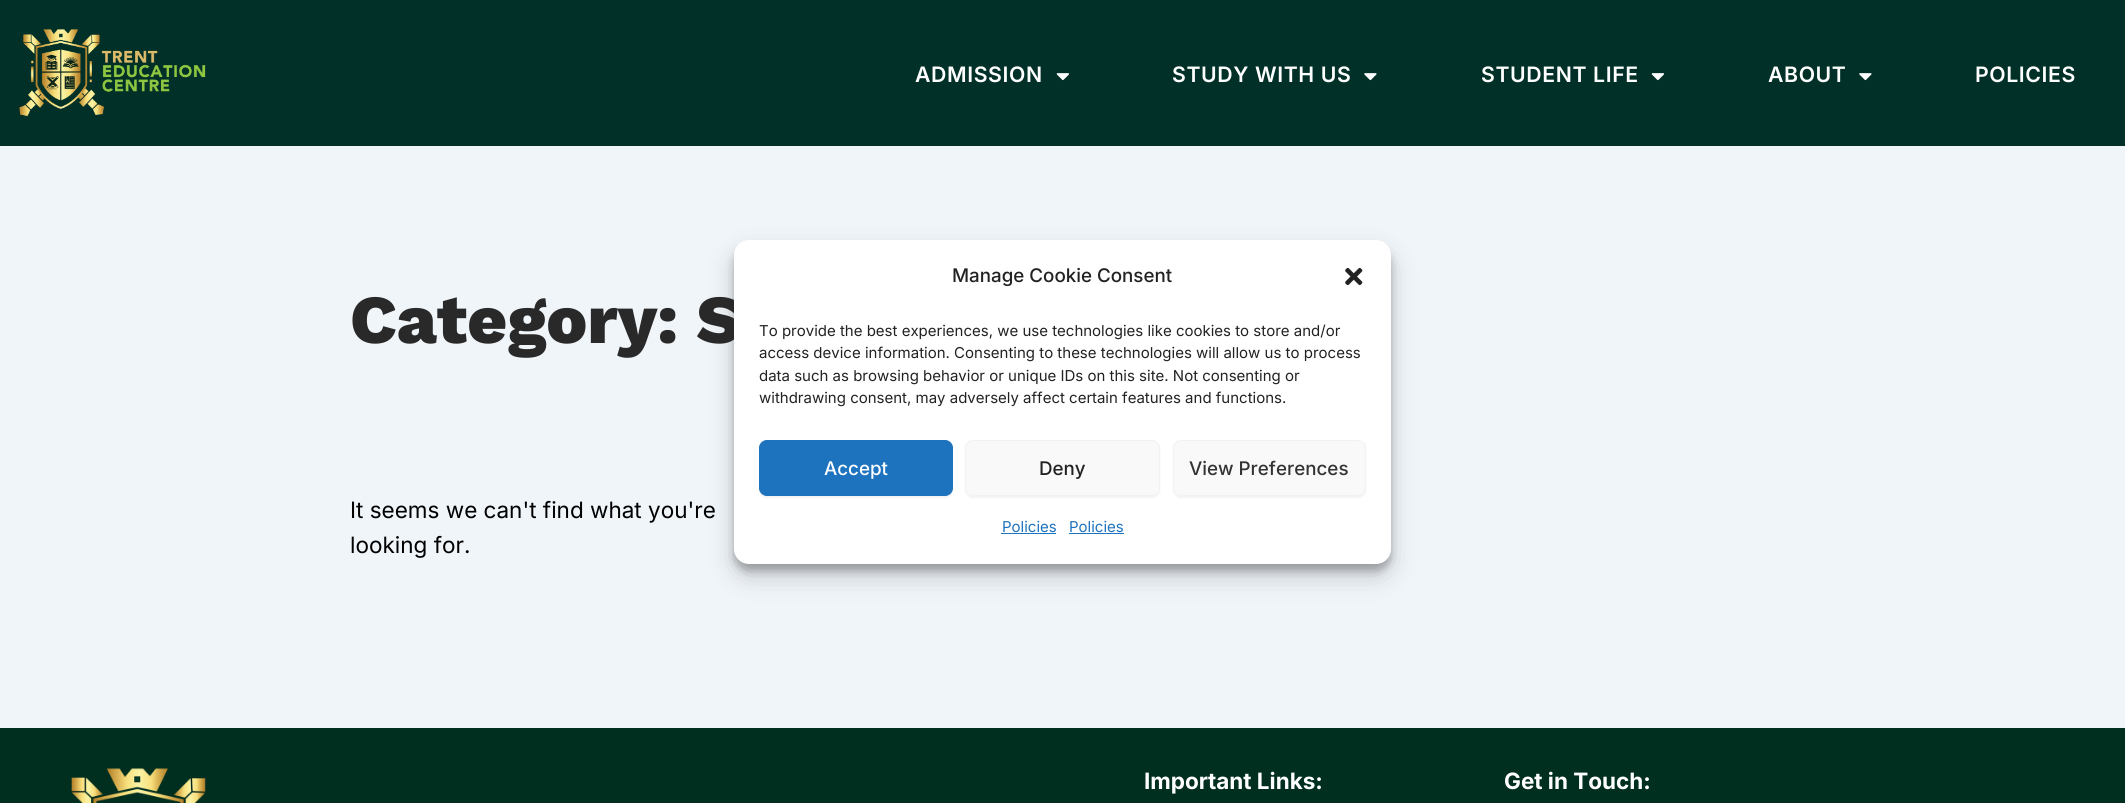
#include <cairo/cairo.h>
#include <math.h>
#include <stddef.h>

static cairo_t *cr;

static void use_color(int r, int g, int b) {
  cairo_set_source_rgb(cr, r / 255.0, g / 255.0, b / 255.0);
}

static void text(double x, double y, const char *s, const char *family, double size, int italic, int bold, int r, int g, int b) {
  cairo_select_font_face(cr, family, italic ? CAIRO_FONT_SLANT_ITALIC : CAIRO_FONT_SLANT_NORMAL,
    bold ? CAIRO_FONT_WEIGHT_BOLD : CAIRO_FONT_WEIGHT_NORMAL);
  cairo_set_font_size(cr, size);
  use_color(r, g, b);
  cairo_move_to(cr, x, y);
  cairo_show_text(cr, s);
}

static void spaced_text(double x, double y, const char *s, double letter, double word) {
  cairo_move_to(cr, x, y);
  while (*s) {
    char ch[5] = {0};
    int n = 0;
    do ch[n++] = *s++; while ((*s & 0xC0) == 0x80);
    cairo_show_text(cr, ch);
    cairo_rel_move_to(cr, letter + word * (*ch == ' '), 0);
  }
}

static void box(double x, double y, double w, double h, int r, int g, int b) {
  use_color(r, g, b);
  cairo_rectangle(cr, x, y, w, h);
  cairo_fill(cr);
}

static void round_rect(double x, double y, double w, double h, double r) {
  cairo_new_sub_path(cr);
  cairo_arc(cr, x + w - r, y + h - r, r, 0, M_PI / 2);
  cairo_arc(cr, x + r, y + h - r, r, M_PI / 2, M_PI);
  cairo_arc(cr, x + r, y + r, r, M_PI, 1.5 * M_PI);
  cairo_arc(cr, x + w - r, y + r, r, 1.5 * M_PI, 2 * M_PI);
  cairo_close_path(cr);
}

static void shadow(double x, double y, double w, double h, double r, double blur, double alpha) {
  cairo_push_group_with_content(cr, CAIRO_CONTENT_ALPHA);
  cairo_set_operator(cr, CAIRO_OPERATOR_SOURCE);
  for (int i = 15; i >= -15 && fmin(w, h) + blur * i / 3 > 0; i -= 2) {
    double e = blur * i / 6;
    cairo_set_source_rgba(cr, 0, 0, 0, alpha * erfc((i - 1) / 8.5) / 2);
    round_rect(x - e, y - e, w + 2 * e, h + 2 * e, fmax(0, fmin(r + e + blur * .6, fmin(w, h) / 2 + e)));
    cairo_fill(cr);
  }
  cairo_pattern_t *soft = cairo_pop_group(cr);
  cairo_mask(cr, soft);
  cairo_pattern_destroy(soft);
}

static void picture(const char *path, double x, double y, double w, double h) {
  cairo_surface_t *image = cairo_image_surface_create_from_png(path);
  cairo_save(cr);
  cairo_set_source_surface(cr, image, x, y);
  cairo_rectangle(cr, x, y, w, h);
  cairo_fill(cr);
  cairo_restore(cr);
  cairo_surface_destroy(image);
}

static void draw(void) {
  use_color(240, 245, 250);
  cairo_paint(cr);
  box(0, 0, 2125, 146, 0, 48, 39);
  picture("img_01.png", 19, 29, 187, 88);
  picture("img_02.png", 1056, 73, 13, 8);
  picture("img_03.png", 1364, 73, 13, 8);
  picture("img_02.png", 1651, 73, 13, 8);
  picture("img_03.png", 1859, 73, 13, 8);
  box(0, 728, 2125, 75, 0, 46, 31);
  picture("img_04.png", 71, 768, 135, 35);
  use_color(0, 0, 0);
  shadow(734, 248, 657, 323, 15, 4, 0.23);
  shadow(734, 253, 657, 323, 15, 12.5, 0.19);
  cairo_select_font_face(cr, "Inter SemiBold", CAIRO_FONT_SLANT_NORMAL, CAIRO_FONT_WEIGHT_NORMAL);
  cairo_set_font_size(cr, 21.25);
  use_color(255, 255, 255);
  spaced_text(915, 82, "ADMISSION", 0.6, 0);
  spaced_text(1172, 82, "STUDY WITH US", 0.6, 0);
  spaced_text(1481, 82, "STUDENT LIFE", 0.6, 0);
  spaced_text(1768, 82, "ABOUT", 0.6, 0);
  spaced_text(1975, 82, "POLICIES", 0.6, 0);
  text(350, 343, "Category: S", "Work Sans ExtraBold", 68.75, 0, 0, 41, 41, 41);
  text(350, 518, "It seems we can't find what you're", "Inter", 22.5, 0, 0, 0, 0, 0);
  text(350, 553, "looking for.", "Inter", 22.5, 0, 0, 0, 0, 0);
  text(1144, 789, "Important Links:", "Inter", 22.5, 0, 1, 255, 255, 255);
  text(1504, 789, "Get in Touch:", "Inter", 22.5, 0, 1, 255, 255, 255);
  round_rect(734, 240, 657, 324, 15);
  cairo_fill(cr);
  text(952, 282, "Manage Cookie Consent", "Inter Medium", 18.75, 0, 0, 34, 34, 34);
  picture("img_05.png", 1345, 267, 18, 19);
  text(759, 336, "To provide the best experiences, we use technologies like cookies to store and/or", "Inter", 15, 0, 0, 34, 34, 34);
  text(759, 358, "access device information. Consenting to these technologies will allow us to process", "Inter", 15, 0, 0, 34, 34, 34);
  text(759, 381, "data such as browsing behavior or unique IDs on this site. Not consenting or", "Inter", 15, 0, 0, 34, 34, 34);
  text(759, 403, "withdrawing consent, may adversely affect certain features and functions.", "Inter", 15, 0, 0, 34, 34, 34);
  use_color(0, 0, 0);
  shadow(759, 441, 194, 57, 8, 1, 0.05);
  use_color(30, 115, 190);
  round_rect(759.5, 440.5, 193, 55, 7.5);
  cairo_fill_preserve(cr);
  cairo_set_line_width(cr, 1);
  cairo_stroke(cr);
  text(824, 475, "Accept", "Inter Medium", 18.75, 0, 0, 255, 255, 255);
  use_color(0, 0, 0);
  shadow(965, 441, 195, 57, 8, 1, 0.05);
  use_color(249, 249, 249);
  round_rect(965.5, 440.5, 194, 55, 7.5);
  cairo_fill_preserve(cr);
  use_color(242, 242, 242);
  cairo_stroke(cr);
  text(1039, 475, "Deny", "Inter Medium", 18.75, 0, 0, 34, 34, 34);
  use_color(0, 0, 0);
  shadow(1173, 441, 193, 57, 8, 1, 0.05);
  use_color(249, 249, 249);
  round_rect(1173.5, 440.5, 192, 55, 7.5);
  cairo_fill_preserve(cr);
  use_color(242, 242, 242);
  cairo_stroke(cr);
  text(1189, 475, "View Preferences", "Inter Medium", 18.75, 0, 0, 51, 51, 51);
  text(1002, 532, "Policies", "Inter", 15, 0, 0, 30, 115, 190);
  box(1001, 533, 55, 1, 30, 115, 190);
  text(1069, 532, "Policies", "Inter", 15, 0, 0, 30, 115, 190);
  box(1069, 533, 55, 1, 30, 115, 190);
}

int main(void) {
  cairo_surface_t *surface = cairo_image_surface_create(CAIRO_FORMAT_RGB24, 2125, 803);
  cr = cairo_create(surface);
  cairo_font_options_t *options = cairo_font_options_create();
  cairo_font_options_set_hint_metrics(options, CAIRO_HINT_METRICS_OFF);
  cairo_font_options_set_hint_style(options, CAIRO_HINT_STYLE_NONE);
  cairo_set_font_options(cr, options);
  cairo_set_miter_limit(cr, 4);
  draw();
  cairo_surface_write_to_png(surface, "out.png");
  cairo_font_options_destroy(options);
  cairo_destroy(cr);
  cairo_surface_destroy(surface);
  return 0;
}
